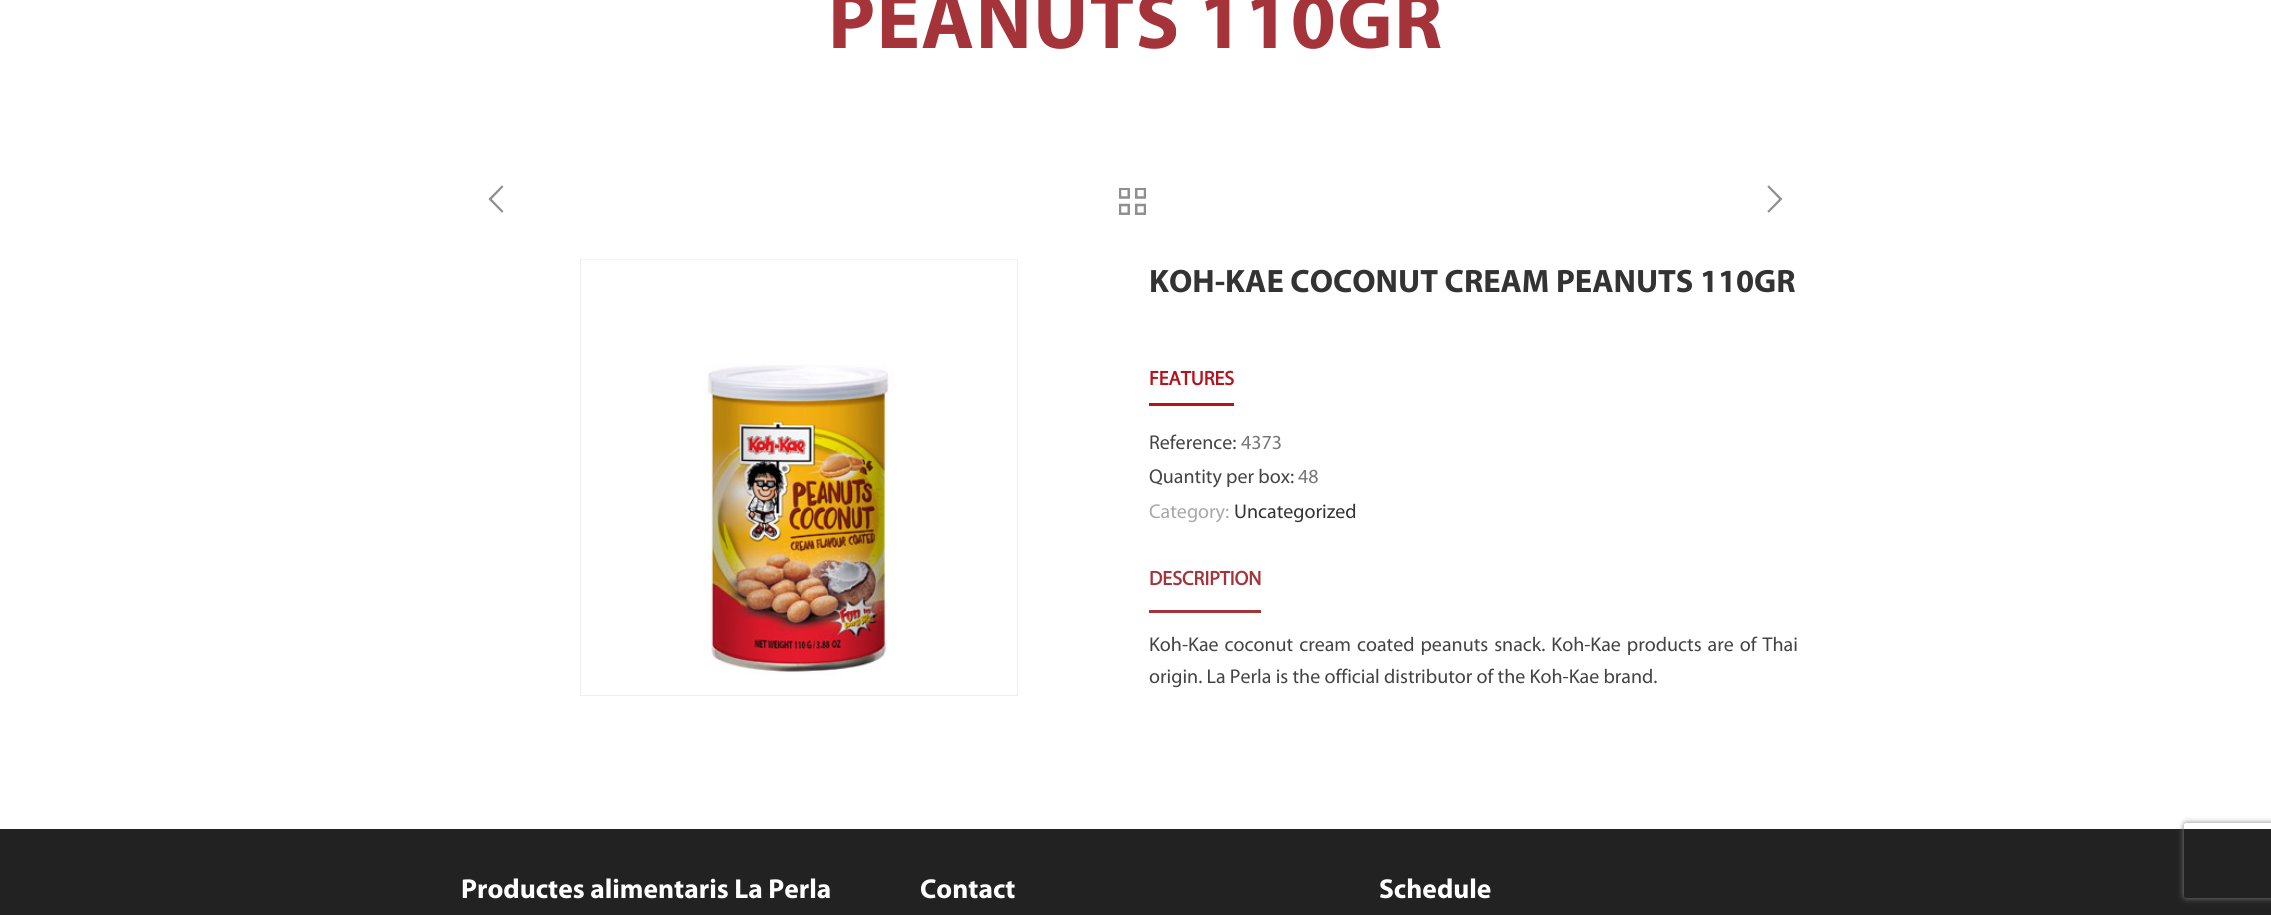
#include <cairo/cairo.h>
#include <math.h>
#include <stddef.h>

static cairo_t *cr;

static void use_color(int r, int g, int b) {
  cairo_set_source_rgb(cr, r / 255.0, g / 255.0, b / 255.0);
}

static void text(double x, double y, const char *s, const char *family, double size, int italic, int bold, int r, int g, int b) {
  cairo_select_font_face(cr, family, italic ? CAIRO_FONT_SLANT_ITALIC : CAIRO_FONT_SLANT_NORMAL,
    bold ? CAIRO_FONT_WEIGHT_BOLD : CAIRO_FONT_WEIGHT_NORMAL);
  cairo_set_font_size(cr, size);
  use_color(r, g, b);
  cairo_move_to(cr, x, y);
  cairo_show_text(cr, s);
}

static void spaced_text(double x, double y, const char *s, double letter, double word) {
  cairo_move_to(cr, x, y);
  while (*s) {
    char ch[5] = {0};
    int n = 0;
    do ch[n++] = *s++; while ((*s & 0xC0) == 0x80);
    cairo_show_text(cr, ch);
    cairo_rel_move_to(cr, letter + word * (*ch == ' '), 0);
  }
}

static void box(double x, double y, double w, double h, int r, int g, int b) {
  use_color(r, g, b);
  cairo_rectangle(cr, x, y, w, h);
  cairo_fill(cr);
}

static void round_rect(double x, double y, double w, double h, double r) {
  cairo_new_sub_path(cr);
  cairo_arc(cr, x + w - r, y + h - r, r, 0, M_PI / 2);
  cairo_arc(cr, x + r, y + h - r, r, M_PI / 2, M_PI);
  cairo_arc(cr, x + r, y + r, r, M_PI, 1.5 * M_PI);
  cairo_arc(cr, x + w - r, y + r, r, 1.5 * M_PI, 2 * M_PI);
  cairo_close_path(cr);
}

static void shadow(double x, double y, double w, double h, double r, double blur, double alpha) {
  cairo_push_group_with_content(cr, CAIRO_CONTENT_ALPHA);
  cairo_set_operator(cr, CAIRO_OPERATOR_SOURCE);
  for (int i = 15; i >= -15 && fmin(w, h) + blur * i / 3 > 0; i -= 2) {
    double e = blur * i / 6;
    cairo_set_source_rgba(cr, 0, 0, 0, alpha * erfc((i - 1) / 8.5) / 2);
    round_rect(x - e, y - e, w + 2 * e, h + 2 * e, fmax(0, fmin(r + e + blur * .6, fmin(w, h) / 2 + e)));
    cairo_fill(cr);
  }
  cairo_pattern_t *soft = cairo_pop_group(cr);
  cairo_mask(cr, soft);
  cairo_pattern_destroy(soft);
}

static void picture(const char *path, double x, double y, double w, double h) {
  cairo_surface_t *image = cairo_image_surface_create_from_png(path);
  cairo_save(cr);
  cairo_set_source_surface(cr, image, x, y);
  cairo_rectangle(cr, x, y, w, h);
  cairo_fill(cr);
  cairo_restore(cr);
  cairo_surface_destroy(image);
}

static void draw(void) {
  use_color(255, 255, 255);
  cairo_paint(cr);
  picture("img_01.png", 488, 185, 16, 28);
  picture("img_02.png", 1119, 188, 27, 27);
  picture("img_03.png", 1767, 185, 15, 28);
  cairo_rectangle(cr, 580.5, 259.5, 437, 436);
  use_color(238, 238, 238);
  cairo_set_line_width(cr, 1);
  cairo_stroke(cr);
  picture("img_04.png", 582, 259, 434, 416);
  box(1149, 403, 85, 3, 181, 18, 27);
  box(1149, 610, 112, 3, 164, 52, 58);
  box(0, 829, 2271, 86, 34, 34, 34);
  cairo_save(cr);
  cairo_set_fill_rule(cr, CAIRO_FILL_RULE_EVEN_ODD);
  cairo_new_path(cr);
  cairo_move_to(cr, 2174, 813);
  cairo_line_to(cr, 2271, 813);
  cairo_line_to(cr, 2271, 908);
  cairo_line_to(cr, 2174, 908);
  cairo_close_path(cr);
  cairo_move_to(cr, 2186.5, 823);
  cairo_line_to(cr, 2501.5, 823);
  cairo_curve_to(cr, 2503, 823, 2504, 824, 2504, 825.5);
  cairo_line_to(cr, 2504, 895.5);
  cairo_curve_to(cr, 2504, 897, 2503, 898, 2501.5, 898);
  cairo_line_to(cr, 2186.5, 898);
  cairo_curve_to(cr, 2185, 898, 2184, 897, 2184, 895.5);
  cairo_line_to(cr, 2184, 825.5);
  cairo_curve_to(cr, 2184, 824, 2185, 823, 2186.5, 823);
  cairo_close_path(cr);
  cairo_clip(cr);
  use_color(128, 128, 128);
  shadow(2184, 823, 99, 75, 2.5, 3, 1);
  cairo_restore(cr);
  cairo_select_font_face(cr, "Myriad", CAIRO_FONT_SLANT_NORMAL, CAIRO_FONT_WEIGHT_BOLD);
  cairo_set_font_size(cr, 81.25);
  use_color(164, 52, 58);
  spaced_text(828, 48, "PEANUTS 110GR", 1.25, 0);
  text(1149, 292, "KOH-KAE COCONUT CREAM PEANUTS 110GR", "Myriad", 32.5, 0, 1, 51, 51, 51);
  text(1149, 385, "FEATURES", "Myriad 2", 20, 0, 1, 181, 18, 27);
  text(1149, 449, "Reference:", "Myriad", 20, 0, 0, 68, 68, 68);
  text(1241, 449, "4373", "Myriad", 20, 0, 0, 119, 119, 119);
  text(1149, 483, "Quantity per box:", "Myriad", 20, 0, 0, 68, 68, 68);
  text(1298, 483, "48", "Myriad", 20, 0, 0, 119, 119, 119);
  text(1149, 518, "Category:", "Myriad", 20, 0, 0, 168, 168, 168);
  text(1234, 518, "Uncategorized", "Myriad", 20, 0, 0, 51, 51, 51);
  text(1149, 585, "DESCRIPTION", "Myriad 2", 20, 0, 1, 164, 52, 58);
  cairo_select_font_face(cr, "Myriad", CAIRO_FONT_SLANT_NORMAL, CAIRO_FONT_WEIGHT_NORMAL);
  use_color(68, 68, 68);
  spaced_text(1149, 651, "Koh-Kae coconut cream coated peanuts snack. Koh-Kae products are of Thai", 0, 1.75);
  text(1149, 683, "origin. La Perla is the official distributor of the Koh-Kae brand.", "Myriad", 20, 0, 0, 68, 68, 68);
  text(461, 898, "Productes alimentaris La Perla", "Myriad", 27.5, 0, 1, 255, 255, 255);
  text(920, 898, "Contact", "Myriad", 27.5, 0, 1, 255, 255, 255);
  text(1379, 898, "Schedule", "Myriad", 27.5, 0, 1, 255, 255, 255);
}

int main(void) {
  cairo_surface_t *surface = cairo_image_surface_create(CAIRO_FORMAT_RGB24, 2271, 915);
  cr = cairo_create(surface);
  cairo_font_options_t *options = cairo_font_options_create();
  cairo_font_options_set_hint_metrics(options, CAIRO_HINT_METRICS_OFF);
  cairo_font_options_set_hint_style(options, CAIRO_HINT_STYLE_NONE);
  cairo_set_font_options(cr, options);
  cairo_set_miter_limit(cr, 4);
  draw();
  cairo_surface_write_to_png(surface, "out.png");
  cairo_font_options_destroy(options);
  cairo_destroy(cr);
  cairo_surface_destroy(surface);
  return 0;
}
